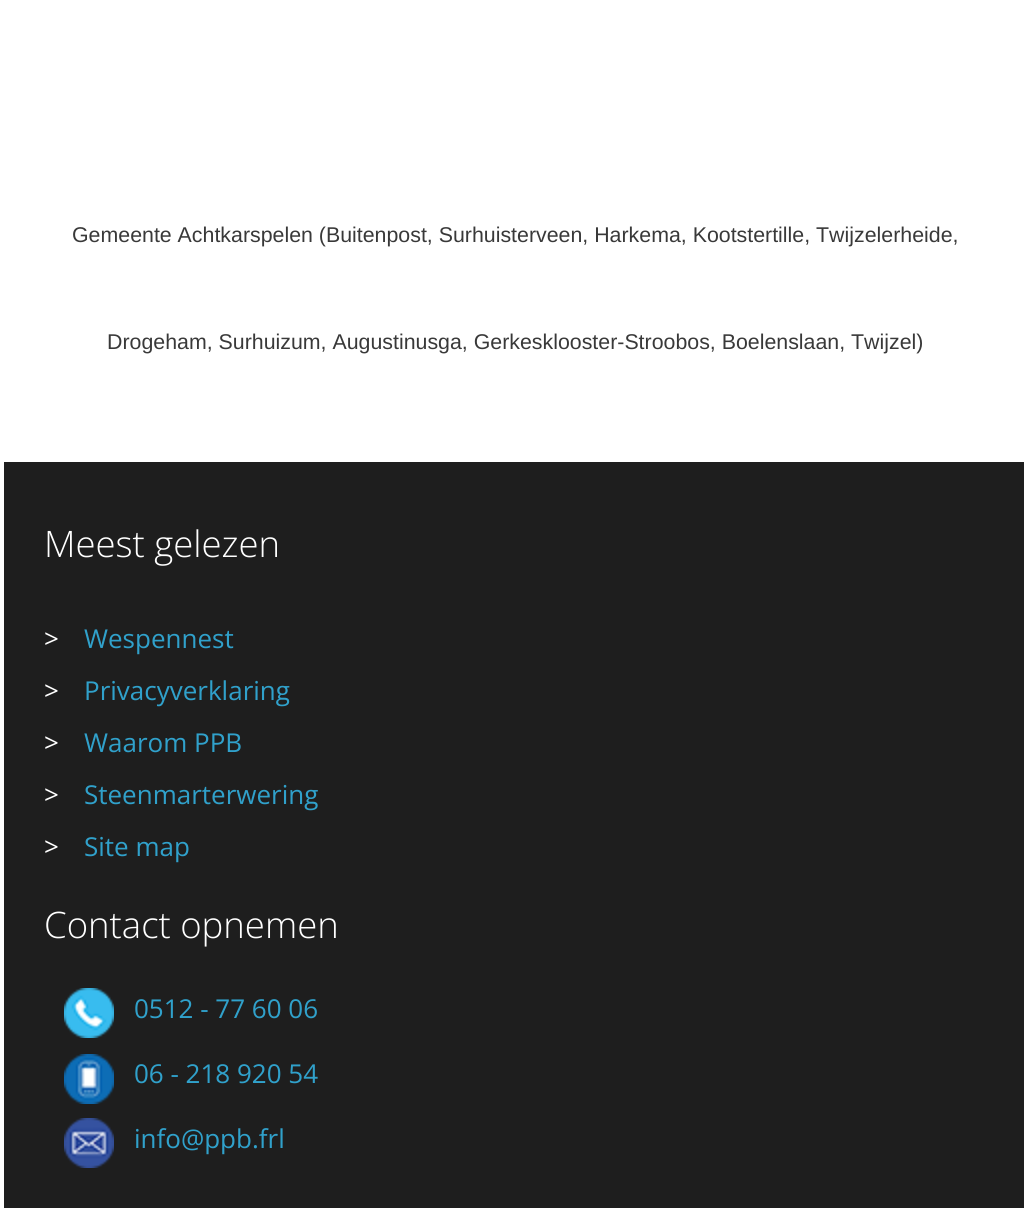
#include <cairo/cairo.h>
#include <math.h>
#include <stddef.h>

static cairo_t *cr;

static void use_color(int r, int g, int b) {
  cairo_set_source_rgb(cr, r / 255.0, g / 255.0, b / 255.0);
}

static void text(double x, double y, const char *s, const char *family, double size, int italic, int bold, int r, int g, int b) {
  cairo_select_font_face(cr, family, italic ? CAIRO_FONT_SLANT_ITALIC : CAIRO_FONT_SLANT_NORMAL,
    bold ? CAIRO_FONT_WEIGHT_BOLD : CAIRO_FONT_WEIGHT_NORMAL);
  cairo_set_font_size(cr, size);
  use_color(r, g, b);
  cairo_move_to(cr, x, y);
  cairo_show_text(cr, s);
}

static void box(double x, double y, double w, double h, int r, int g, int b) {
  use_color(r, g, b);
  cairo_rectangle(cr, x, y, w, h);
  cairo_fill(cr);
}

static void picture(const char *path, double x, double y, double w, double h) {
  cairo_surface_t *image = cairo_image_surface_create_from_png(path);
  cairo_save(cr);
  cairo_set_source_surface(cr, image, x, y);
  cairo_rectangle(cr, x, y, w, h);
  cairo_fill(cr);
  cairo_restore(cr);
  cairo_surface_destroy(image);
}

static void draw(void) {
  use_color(255, 255, 255);
  cairo_paint(cr);
  box(4, 462, 1020, 746, 30, 30, 30);
  picture("img_01.png", 64, 988, 50, 50);
  picture("img_02.png", 64, 1054, 50, 50);
  picture("img_03.png", 64, 1118, 50, 50);
  text(72, 242, "Gemeente Achtkarspelen (Buitenpost, Surhuisterveen, Harkema, Kootstertille, Twijzelerheide,", "Liberation Sans", 21.35, 0, 0, 57, 57, 57);
  text(107, 349, "Drogeham, Surhuizum, Augustinusga, Gerkesklooster-Stroobos, Boelenslaan, Twijzel)", "Liberation Sans", 21.35, 0, 0, 57, 57, 57);
  text(44, 557, "Meest gelezen", "Open Sans Light", 36.5, 0, 0, 255, 255, 255);
  text(44, 648, ">", "Open Sans", 26, 0, 0, 255, 255, 255);
  text(84, 648, "Wespennest", "Open Sans", 26, 0, 0, 48, 161, 203);
  text(44, 700, ">", "Open Sans", 26, 0, 0, 255, 255, 255);
  text(84, 700, "Privacyverklaring", "Open Sans", 26, 0, 0, 48, 161, 203);
  text(44, 752, ">", "Open Sans", 26, 0, 0, 255, 255, 255);
  text(84, 752, "Waarom PPB", "Open Sans", 26, 0, 0, 48, 161, 203);
  text(44, 804, ">", "Open Sans", 26, 0, 0, 255, 255, 255);
  text(84, 804, "Steenmarterwering", "Open Sans", 26, 0, 0, 48, 161, 203);
  text(44, 856, ">", "Open Sans", 26, 0, 0, 255, 255, 255);
  text(84, 856, "Site map", "Open Sans", 26, 0, 0, 48, 161, 203);
  text(44, 938, "Contact opnemen", "Open Sans Light", 36.5, 0, 0, 255, 255, 255);
  text(134, 1018, "0512 - 77 60 06", "Open Sans", 26, 0, 0, 48, 161, 203);
  text(134, 1083, "06 - 218 920 54", "Open Sans", 26, 0, 0, 48, 161, 203);
  text(134, 1148, "info@ppb.frl", "Open Sans", 26, 0, 0, 48, 161, 203);
}

int main(void) {
  cairo_surface_t *surface = cairo_image_surface_create(CAIRO_FORMAT_RGB24, 1028, 1208);
  cr = cairo_create(surface);
  cairo_font_options_t *options = cairo_font_options_create();
  cairo_font_options_set_hint_metrics(options, CAIRO_HINT_METRICS_OFF);
  cairo_font_options_set_hint_style(options, CAIRO_HINT_STYLE_NONE);
  cairo_set_font_options(cr, options);
  cairo_set_miter_limit(cr, 4);
  draw();
  cairo_surface_write_to_png(surface, "out.png");
  cairo_font_options_destroy(options);
  cairo_destroy(cr);
  cairo_surface_destroy(surface);
  return 0;
}
